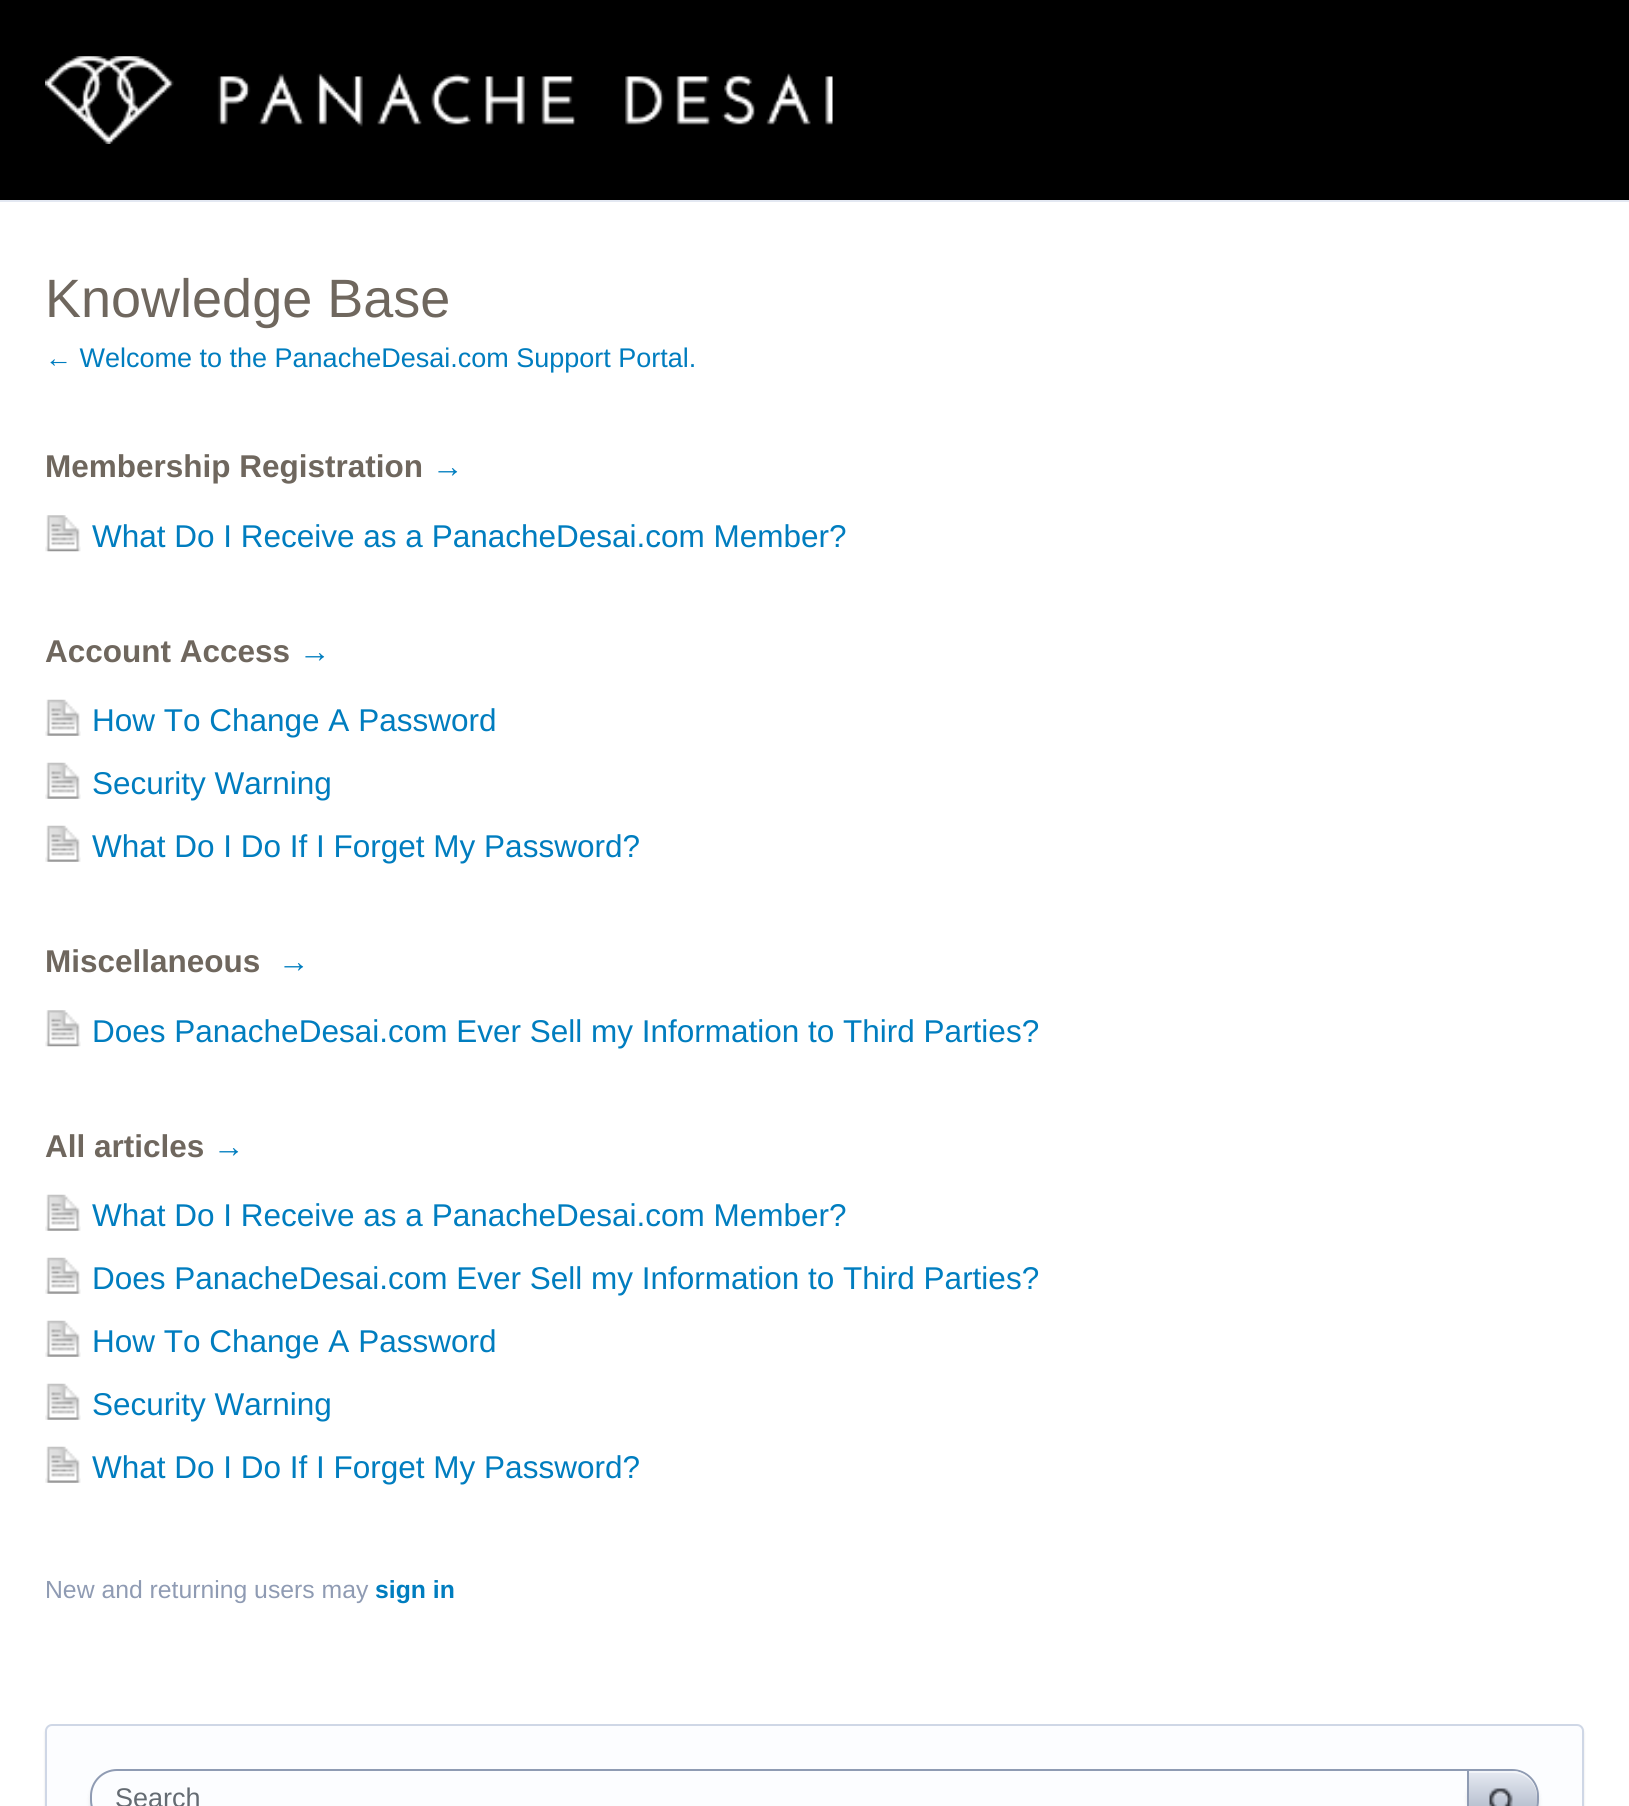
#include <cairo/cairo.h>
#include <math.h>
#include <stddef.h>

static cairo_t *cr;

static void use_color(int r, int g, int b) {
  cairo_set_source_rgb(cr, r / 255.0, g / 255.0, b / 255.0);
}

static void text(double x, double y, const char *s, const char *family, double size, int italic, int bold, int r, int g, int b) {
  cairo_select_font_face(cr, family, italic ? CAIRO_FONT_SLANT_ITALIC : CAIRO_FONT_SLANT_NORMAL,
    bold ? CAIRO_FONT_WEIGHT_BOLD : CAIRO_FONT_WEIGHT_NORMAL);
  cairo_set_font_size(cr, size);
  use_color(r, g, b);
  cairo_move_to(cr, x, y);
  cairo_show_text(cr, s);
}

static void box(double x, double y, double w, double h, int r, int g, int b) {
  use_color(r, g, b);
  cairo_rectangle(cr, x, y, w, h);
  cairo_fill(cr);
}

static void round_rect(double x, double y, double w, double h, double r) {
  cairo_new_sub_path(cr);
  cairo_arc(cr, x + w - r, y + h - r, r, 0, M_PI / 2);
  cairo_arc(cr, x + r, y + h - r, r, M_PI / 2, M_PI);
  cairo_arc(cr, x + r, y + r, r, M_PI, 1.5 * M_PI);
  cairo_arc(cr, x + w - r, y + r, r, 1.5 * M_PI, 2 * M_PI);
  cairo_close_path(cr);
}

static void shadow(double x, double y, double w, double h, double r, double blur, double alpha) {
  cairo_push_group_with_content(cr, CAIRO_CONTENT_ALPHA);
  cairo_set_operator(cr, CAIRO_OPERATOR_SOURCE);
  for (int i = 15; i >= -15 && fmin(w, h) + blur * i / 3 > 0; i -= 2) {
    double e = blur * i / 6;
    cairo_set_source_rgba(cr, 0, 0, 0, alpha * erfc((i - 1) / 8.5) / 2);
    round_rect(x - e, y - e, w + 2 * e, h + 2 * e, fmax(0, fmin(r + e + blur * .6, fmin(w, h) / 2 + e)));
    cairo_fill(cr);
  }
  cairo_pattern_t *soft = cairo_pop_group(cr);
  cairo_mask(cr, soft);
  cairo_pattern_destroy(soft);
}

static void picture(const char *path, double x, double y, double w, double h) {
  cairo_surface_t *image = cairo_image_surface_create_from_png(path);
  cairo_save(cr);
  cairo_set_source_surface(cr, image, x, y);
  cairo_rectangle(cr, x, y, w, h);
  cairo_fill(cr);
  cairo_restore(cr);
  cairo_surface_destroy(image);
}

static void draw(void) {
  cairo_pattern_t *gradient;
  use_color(255, 255, 255);
  cairo_paint(cr);
  box(0, 0, 1629, 200, 0, 0, 0);
  picture("img_01.png", 45, 56, 788, 88);
  box(0, 200, 1629, 2, 227, 232, 242);
  picture("img_02.png", 45, 515, 36, 37);
  picture("img_03.png", 45, 699, 36, 37);
  picture("img_03.png", 45, 762, 36, 37);
  picture("img_04.png", 45, 825, 36, 37);
  picture("img_02.png", 45, 1010, 36, 37);
  picture("img_03.png", 45, 1194, 36, 37);
  picture("img_03.png", 45, 1257, 36, 37);
  picture("img_03.png", 45, 1320, 36, 37);
  picture("img_03.png", 45, 1383, 36, 37);
  picture("img_03.png", 45, 1446, 36, 37);
  use_color(0, 0, 0);
  shadow(45, 1726, 1539, 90, 7, 1, 0.1);
  use_color(252, 253, 255);
  round_rect(46, 1725, 1537, 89, 6);
  cairo_fill_preserve(cr);
  use_color(207, 215, 230);
  cairo_stroke(cr);
  use_color(0, 0, 0);
  shadow(90, 1773, 1449, 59, 27, 2, 0.1);
  use_color(252, 253, 255);
  round_rect(91, 1770, 1447, 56, 26);
  cairo_fill_preserve(cr);
  use_color(143, 155, 179);
  cairo_stroke(cr);
  cairo_save(cr);
  round_rect(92, 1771, 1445, 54, 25);
  cairo_clip(cr);
  use_color(0, 0, 0);
  shadow(1467, 1771, 72, 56, 27, 2, 0.1);
  cairo_restore(cr);
  gradient = cairo_pattern_create_linear(1469, 1771, 1469, 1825);
  cairo_pattern_add_color_stop_rgba(gradient, 0, 0.902, 0.918, 0.949, 1);
  cairo_pattern_add_color_stop_rgba(gradient, 1, 0.635, 0.675, 0.749, 1);
  cairo_set_source(cr, gradient);
  cairo_pattern_destroy(gradient);
  cairo_new_path(cr);
  cairo_move_to(cr, 1469, 1771);
  cairo_line_to(cr, 1469, 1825);
  cairo_line_to(cr, 1498, 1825);
  cairo_curve_to(cr, 1506, 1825, 1514, 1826, 1522, 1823);
  cairo_curve_to(cr, 1546, 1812, 1540, 1771, 1512, 1771);
  cairo_close_path(cr);
  cairo_fill(cr);
  cairo_set_source_rgba(cr, 1, 1, 1, 0.5);
  cairo_new_path(cr);
  cairo_move_to(cr, 1469, 1773);
  cairo_line_to(cr, 1469, 1771);
  cairo_line_to(cr, 1515, 1771);
  cairo_curve_to(cr, 1527, 1773, 1536, 1783, 1537, 1794);
  cairo_curve_to(cr, 1535, 1782, 1525, 1773, 1512, 1773);
  cairo_close_path(cr);
  cairo_fill(cr);
  use_color(143, 155, 179);
  cairo_new_path(cr);
  cairo_move_to(cr, 1537, 1798);
  cairo_line_to(cr, 1537, 1800);
  cairo_curve_to(cr, 1537, 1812.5, 1527.5, 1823, 1515.5, 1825);
  cairo_curve_to(cr, 1528, 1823, 1537, 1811.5, 1537, 1798);
  cairo_close_path(cr);
  cairo_fill(cr);
  box(1467, 1771, 2, 35, 143, 155, 179);
  picture("img_05.png", 1489, 1788, 24, 18);
  text(45, 317, "Knowledge Base", "Liberation Sans", 54, 0, 0, 111, 103, 94);
  text(45, 367, "← Welcome to the PanacheDesai.com Support Portal.", "Liberation Sans", 27, 0, 0, 0, 125, 191);
  text(45, 477, "Membership Registration", "Liberation Sans", 31.5, 0, 1, 111, 103, 94);
  text(432, 477, "→", "Liberation Sans", 31.5, 0, 1, 0, 125, 191);
  text(92, 547, "What Do I Receive as a PanacheDesai.com Member?", "Liberation Sans", 31.5, 0, 0, 0, 125, 191);
  text(45, 662, "Account Access", "Liberation Sans", 31.5, 0, 1, 111, 103, 94);
  text(299, 662, "→", "Liberation Sans", 31.5, 0, 1, 0, 125, 191);
  text(92, 731, "How To Change A Password", "Liberation Sans", 31.5, 0, 0, 0, 125, 191);
  text(92, 794, "Security Warning", "Liberation Sans", 31.5, 0, 0, 0, 125, 191);
  text(92, 857, "What Do I Do If I Forget My Password?", "Liberation Sans", 31.5, 0, 0, 0, 125, 191);
  text(45, 972, "Miscellaneous", "Liberation Sans", 31.5, 0, 1, 111, 103, 94);
  text(278, 972, "→", "Liberation Sans", 31.5, 0, 1, 0, 125, 191);
  text(92, 1042, "Does PanacheDesai.com Ever Sell my Information to Third Parties?", "Liberation Sans", 31.5, 0, 0, 0, 125, 191);
  text(45, 1157, "All articles", "Liberation Sans", 31.5, 0, 1, 111, 103, 94);
  text(213, 1157, "→", "Liberation Sans", 31.5, 0, 1, 0, 125, 191);
  text(92, 1226, "What Do I Receive as a PanacheDesai.com Member?", "Liberation Sans", 31.5, 0, 0, 0, 125, 191);
  text(92, 1289, "Does PanacheDesai.com Ever Sell my Information to Third Parties?", "Liberation Sans", 31.5, 0, 0, 0, 125, 191);
  text(92, 1352, "How To Change A Password", "Liberation Sans", 31.5, 0, 0, 0, 125, 191);
  text(92, 1415, "Security Warning", "Liberation Sans", 31.5, 0, 0, 0, 125, 191);
  text(92, 1478, "What Do I Do If I Forget My Password?", "Liberation Sans", 31.5, 0, 0, 0, 125, 191);
  text(45, 1598, "New and returning users may", "Liberation Sans", 24.75, 0, 0, 143, 155, 179);
  text(375, 1598, "sign in", "Liberation Sans", 24.75, 0, 1, 0, 125, 191);
  text(115, 1807, "Search", "Liberation Sans", 27, 0, 0, 100, 107, 114);
}

int main(void) {
  cairo_surface_t *surface = cairo_image_surface_create(CAIRO_FORMAT_RGB24, 1629, 1806);
  cr = cairo_create(surface);
  cairo_font_options_t *options = cairo_font_options_create();
  cairo_font_options_set_hint_metrics(options, CAIRO_HINT_METRICS_OFF);
  cairo_font_options_set_hint_style(options, CAIRO_HINT_STYLE_NONE);
  cairo_set_font_options(cr, options);
  cairo_set_miter_limit(cr, 4);
  draw();
  cairo_surface_write_to_png(surface, "out.png");
  cairo_font_options_destroy(options);
  cairo_destroy(cr);
  cairo_surface_destroy(surface);
  return 0;
}
